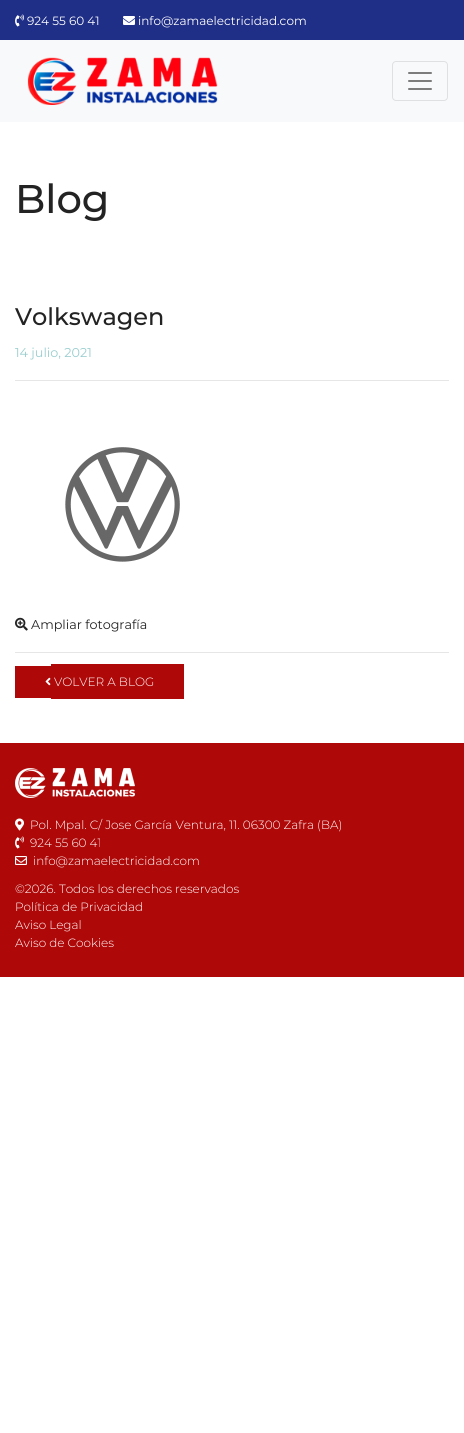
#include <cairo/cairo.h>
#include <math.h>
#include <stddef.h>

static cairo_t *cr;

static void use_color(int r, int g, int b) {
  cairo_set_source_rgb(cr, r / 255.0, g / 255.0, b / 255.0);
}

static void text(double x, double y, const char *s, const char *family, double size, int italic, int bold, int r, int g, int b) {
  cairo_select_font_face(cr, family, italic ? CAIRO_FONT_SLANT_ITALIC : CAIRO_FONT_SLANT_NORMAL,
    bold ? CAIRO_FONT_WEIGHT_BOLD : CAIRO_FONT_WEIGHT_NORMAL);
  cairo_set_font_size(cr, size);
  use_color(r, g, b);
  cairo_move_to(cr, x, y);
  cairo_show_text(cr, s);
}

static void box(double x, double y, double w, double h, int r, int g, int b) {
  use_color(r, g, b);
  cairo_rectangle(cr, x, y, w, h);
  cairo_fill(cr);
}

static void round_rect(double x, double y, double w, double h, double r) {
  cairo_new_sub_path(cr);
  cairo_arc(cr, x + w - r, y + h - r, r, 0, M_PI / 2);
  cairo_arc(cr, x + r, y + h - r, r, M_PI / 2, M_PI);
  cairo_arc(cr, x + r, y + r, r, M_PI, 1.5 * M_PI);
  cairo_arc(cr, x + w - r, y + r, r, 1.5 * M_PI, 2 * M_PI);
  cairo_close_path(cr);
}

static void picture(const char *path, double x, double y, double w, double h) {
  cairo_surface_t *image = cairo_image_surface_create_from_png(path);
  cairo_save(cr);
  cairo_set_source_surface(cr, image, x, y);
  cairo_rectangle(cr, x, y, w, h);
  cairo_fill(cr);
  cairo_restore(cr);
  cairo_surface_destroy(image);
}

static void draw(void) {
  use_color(255, 255, 255);
  cairo_paint(cr);
  box(0, 0, 464, 40, 31, 46, 134);
  picture("img_01.png", 15, 14, 9, 13);
  picture("img_02.png", 123, 16, 12, 9);
  box(0, 40, 464, 82, 248, 249, 250);
  picture("img_03.png", 27, 57, 191, 48);
  round_rect(392.5, 61.5, 55, 39, 3.5);
  use_color(223, 224, 225);
  cairo_set_line_width(cr, 1);
  cairo_stroke(cr);
  picture("img_04.png", 408, 72, 24, 18);
  box(15, 380, 434, 1, 230, 230, 230);
  picture("img_05.png", 65, 447, 115, 115);
  picture("img_06.png", 15, 617, 13, 14);
  box(15, 652, 434, 1, 230, 230, 230);
  box(15, 666, 36, 32, 175, 8, 8);
  box(51, 664, 133, 35, 175, 8, 8);
  picture("img_07.png", 45, 677, 6, 9);
  box(0, 743, 464, 234, 175, 8, 8);
  picture("img_08.png", 15, 768, 120, 30);
  picture("img_09.png", 15, 818, 9, 13);
  picture("img_10.png", 15, 836, 9, 13);
  picture("img_11.png", 15, 856, 12, 9);
  text(27, 25, "924 55 60 41", "Montserrat", 12, 0, 0, 255, 255, 255);
  text(138, 25, "info@zamaelectricidad.com", "Montserrat", 12, 0, 0, 255, 255, 255);
  text(15, 213, "Blog", "Montserrat Medium", 40, 0, 0, 35, 35, 35);
  text(15, 325, "Volkswagen", "Montserrat Medium", 24, 0, 0, 35, 35, 35);
  text(15, 357, "14 julio, 2021", "Montserrat", 12.75, 0, 0, 154, 205, 207);
  text(31, 629, "Ampliar fotografía", "Montserrat", 12.75, 0, 0, 35, 35, 35);
  text(54, 686, "VOLVER A BLOG", "Montserrat Light", 12, 0, 0, 255, 255, 255);
  text(30, 829, "Pol. Mpal. C/ Jose García Ventura, 11. 06300 Zafra (BA)", "Montserrat Light", 12, 0, 0, 255, 255, 255);
  text(30, 847, "924 55 60 41", "Montserrat Light", 12, 0, 0, 255, 255, 255);
  text(33, 865, "info@zamaelectricidad.com", "Montserrat Light", 12, 0, 0, 255, 255, 255);
  text(15, 893, "©2026. Todos los derechos reservados", "Montserrat Light", 12, 0, 0, 255, 255, 255);
  text(15, 911, "Política de Privacidad", "Montserrat Light", 12, 0, 0, 255, 255, 255);
  text(15, 929, "Aviso Legal", "Montserrat Light", 12, 0, 0, 255, 255, 255);
  text(15, 947, "Aviso de Cookies", "Montserrat Light", 12, 0, 0, 255, 255, 255);
}

int main(void) {
  cairo_surface_t *surface = cairo_image_surface_create(CAIRO_FORMAT_RGB24, 464, 1433);
  cr = cairo_create(surface);
  cairo_font_options_t *options = cairo_font_options_create();
  cairo_font_options_set_hint_metrics(options, CAIRO_HINT_METRICS_OFF);
  cairo_font_options_set_hint_style(options, CAIRO_HINT_STYLE_NONE);
  cairo_set_font_options(cr, options);
  cairo_set_miter_limit(cr, 4);
  draw();
  cairo_surface_write_to_png(surface, "out.png");
  cairo_font_options_destroy(options);
  cairo_destroy(cr);
  cairo_surface_destroy(surface);
  return 0;
}
